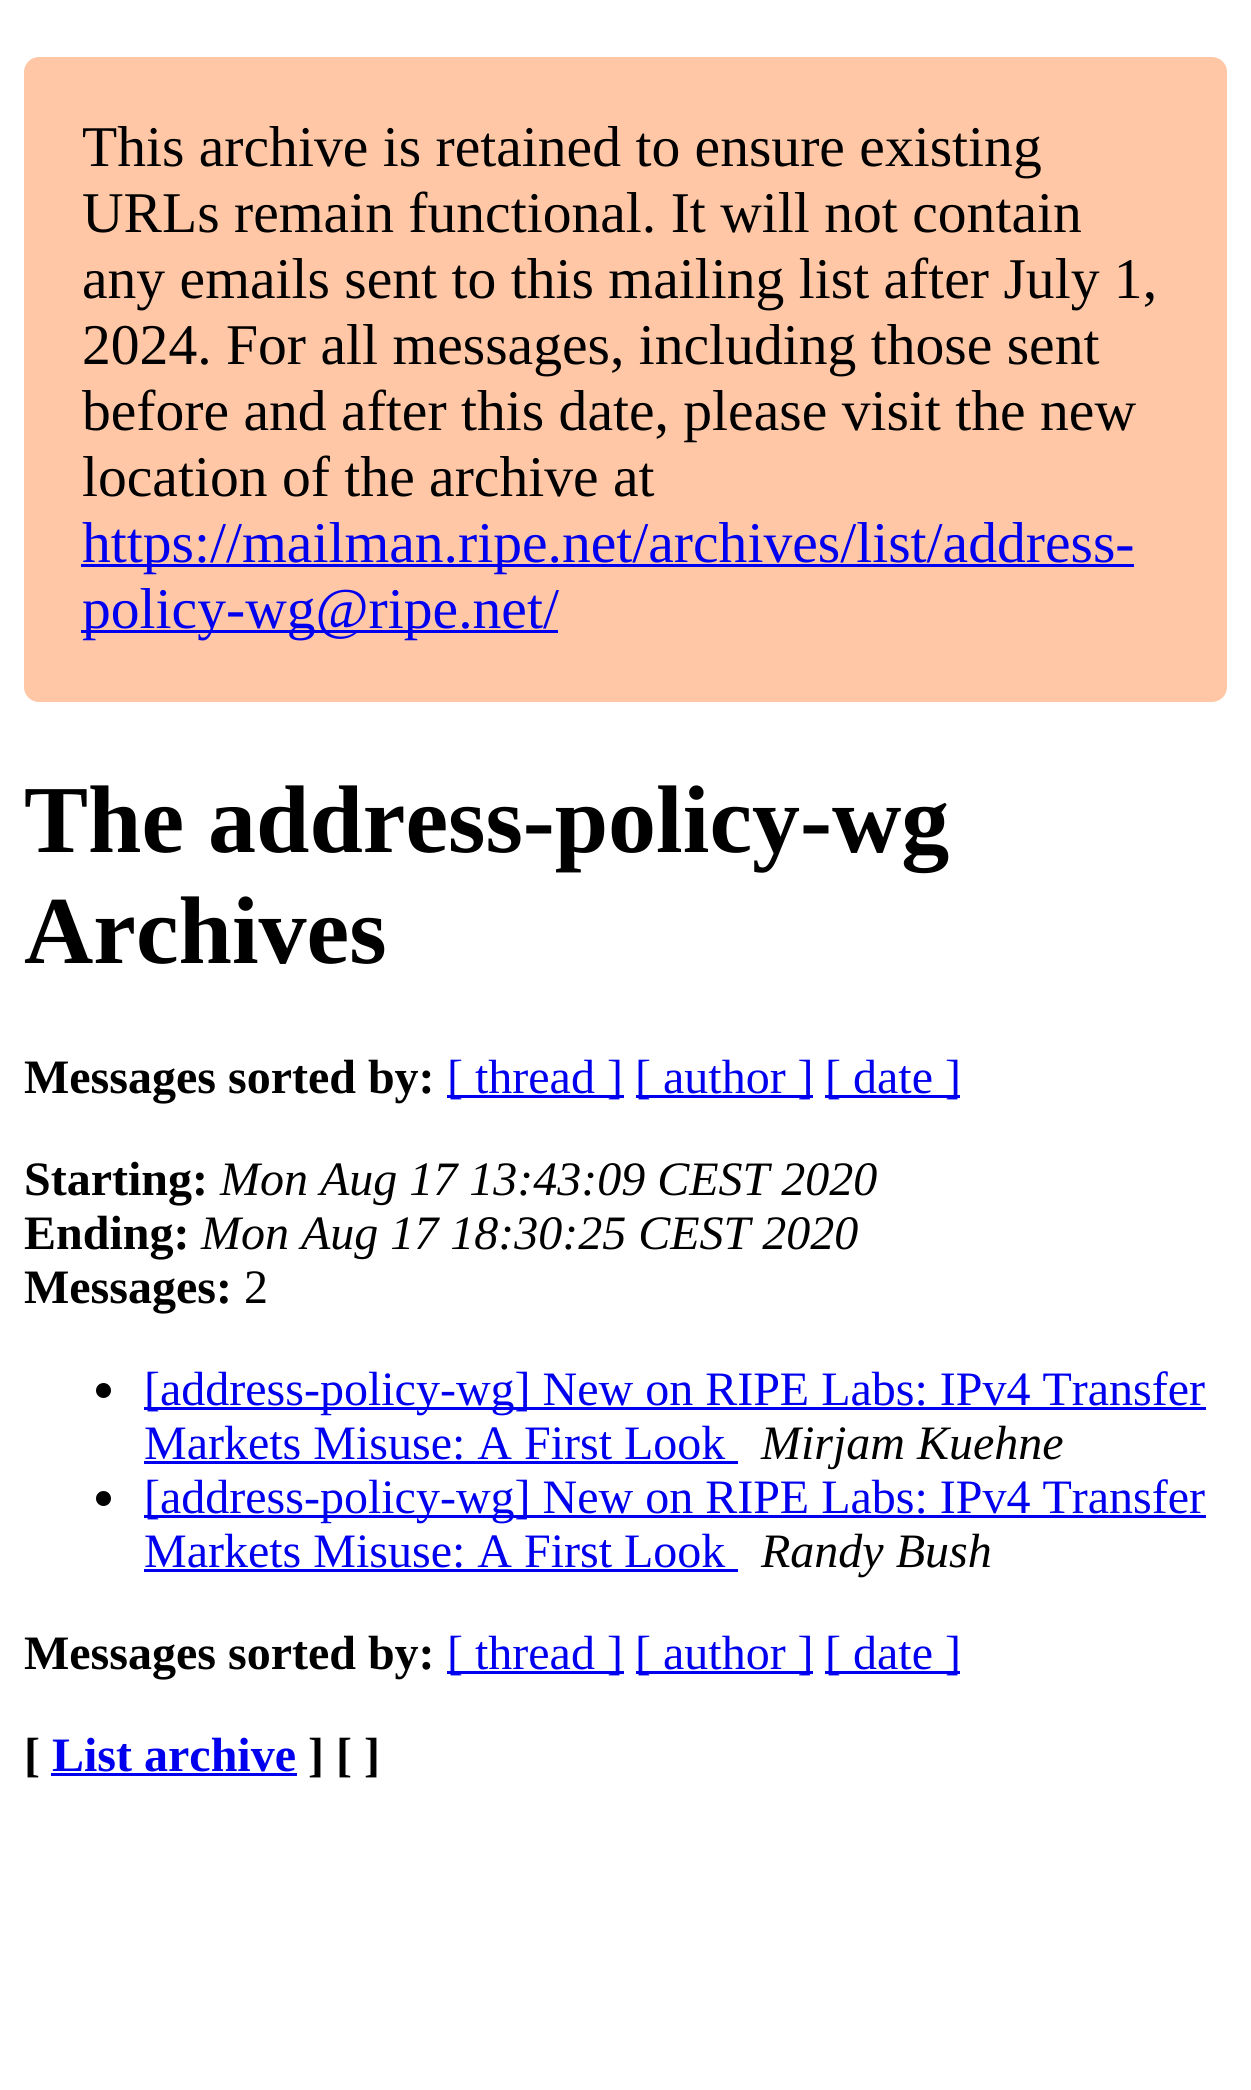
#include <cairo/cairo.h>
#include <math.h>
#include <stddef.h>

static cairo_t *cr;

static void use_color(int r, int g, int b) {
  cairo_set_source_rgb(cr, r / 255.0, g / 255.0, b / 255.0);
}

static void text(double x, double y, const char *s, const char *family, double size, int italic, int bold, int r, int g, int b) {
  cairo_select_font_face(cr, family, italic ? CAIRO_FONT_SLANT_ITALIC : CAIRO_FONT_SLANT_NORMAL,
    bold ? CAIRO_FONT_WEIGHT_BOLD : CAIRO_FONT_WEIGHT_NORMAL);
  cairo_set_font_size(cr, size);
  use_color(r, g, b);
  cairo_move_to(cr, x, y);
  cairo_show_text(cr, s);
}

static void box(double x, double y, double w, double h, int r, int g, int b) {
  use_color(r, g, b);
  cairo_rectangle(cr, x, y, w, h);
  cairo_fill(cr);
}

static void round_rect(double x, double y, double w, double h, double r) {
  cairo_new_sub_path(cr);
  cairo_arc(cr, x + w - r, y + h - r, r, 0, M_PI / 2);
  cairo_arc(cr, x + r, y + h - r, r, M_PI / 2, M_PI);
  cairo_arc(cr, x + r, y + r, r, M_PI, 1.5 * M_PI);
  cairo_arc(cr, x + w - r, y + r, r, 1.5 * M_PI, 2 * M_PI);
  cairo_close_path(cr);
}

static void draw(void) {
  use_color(255, 255, 255);
  cairo_paint(cr);
  use_color(255, 199, 166);
  round_rect(24, 57, 1203, 645, 15);
  cairo_fill(cr);
  box(81, 564, 1053, 3, 0, 0, 238);
  box(81, 630, 477, 3, 0, 0, 238);
  box(447, 1095, 177, 3, 0, 0, 238);
  box(636, 1095, 177, 3, 0, 0, 238);
  box(825, 1095, 135, 3, 0, 0, 238);
  use_color(0, 0, 0);
  cairo_arc(cr, 103.5, 1390.5, 7.5, 0, 2 * M_PI);
  cairo_fill(cr);
  box(144, 1407, 1062, 3, 0, 0, 238);
  box(144, 1461, 594, 3, 0, 0, 238);
  use_color(0, 0, 0);
  cairo_arc(cr, 103.5, 1498.5, 7.5, 0, 2 * M_PI);
  cairo_fill(cr);
  box(144, 1515, 1062, 3, 0, 0, 238);
  box(144, 1569, 594, 3, 0, 0, 238);
  box(447, 1671, 177, 3, 0, 0, 238);
  box(636, 1671, 177, 3, 0, 0, 238);
  box(825, 1671, 135, 3, 0, 0, 238);
  box(51, 1773, 246, 3, 0, 0, 238);
  text(82, 166, "This archive is retained to ensure existing", "Liberation Serif", 57.6, 0, 0, 0, 0, 0);
  text(82, 232, "URLs remain functional. It will not contain", "Liberation Serif", 57.6, 0, 0, 0, 0, 0);
  text(82, 298, "any emails sent to this mailing list after July 1,", "Liberation Serif", 57.6, 0, 0, 0, 0, 0);
  text(82, 364, "2024. For all messages, including those sent", "Liberation Serif", 57.6, 0, 0, 0, 0, 0);
  text(82, 430, "before and after this date, please visit the new", "Liberation Serif", 57.6, 0, 0, 0, 0, 0);
  text(82, 496, "location of the archive at", "Liberation Serif", 57.6, 0, 0, 0, 0, 0);
  text(82, 562, "https://mailman.ripe.net/archives/list/address-", "Liberation Serif", 57.6, 0, 0, 0, 0, 238);
  text(82, 628, "policy-wg@ripe.net/", "Liberation Serif", 57.6, 0, 0, 0, 0, 238);
  text(24, 852, "The address-policy-wg", "Liberation Serif", 96, 0, 1, 0, 0, 0);
  text(24, 963, "Archives", "Liberation Serif", 96, 0, 1, 0, 0, 0);
  text(24, 1093, "Messages sorted by:", "Liberation Serif", 48, 0, 1, 0, 0, 0);
  text(447, 1093, "[ thread ]", "Liberation Serif", 48, 0, 0, 0, 0, 238);
  text(635, 1093, "[ author ]", "Liberation Serif", 48, 0, 0, 0, 0, 238);
  text(825, 1093, "[ date ]", "Liberation Serif", 48, 0, 0, 0, 0, 238);
  text(24, 1195, "Starting:", "Liberation Serif", 48, 0, 1, 0, 0, 0);
  text(220, 1195, "Mon Aug 17 13:43:09 CEST 2020", "Liberation Serif", 48, 1, 0, 0, 0, 0);
  text(24, 1249, "Ending:", "Liberation Serif", 48, 0, 1, 0, 0, 0);
  text(201, 1249, "Mon Aug 17 18:30:25 CEST 2020", "Liberation Serif", 48, 1, 0, 0, 0, 0);
  text(24, 1303, "Messages:", "Liberation Serif", 48, 0, 1, 0, 0, 0);
  text(244, 1303, "2", "Liberation Serif", 48, 0, 0, 0, 0, 0);
  text(144, 1405, "[address-policy-wg] New on RIPE Labs: IPv4 Transfer", "Liberation Serif", 48, 0, 0, 0, 0, 238);
  text(144, 1459, "Markets Misuse: A First Look", "Liberation Serif", 48, 0, 0, 0, 0, 238);
  text(761, 1459, "Mirjam Kuehne", "Liberation Serif", 48, 1, 0, 0, 0, 0);
  text(144, 1513, "[address-policy-wg] New on RIPE Labs: IPv4 Transfer", "Liberation Serif", 48, 0, 0, 0, 0, 238);
  text(144, 1567, "Markets Misuse: A First Look", "Liberation Serif", 48, 0, 0, 0, 0, 238);
  text(761, 1567, "Randy Bush", "Liberation Serif", 48, 1, 0, 0, 0, 0);
  text(24, 1669, "Messages sorted by:", "Liberation Serif", 48, 0, 1, 0, 0, 0);
  text(447, 1669, "[ thread ]", "Liberation Serif", 48, 0, 0, 0, 0, 238);
  text(635, 1669, "[ author ]", "Liberation Serif", 48, 0, 0, 0, 0, 238);
  text(825, 1669, "[ date ]", "Liberation Serif", 48, 0, 0, 0, 0, 238);
  text(24, 1771, "[", "Liberation Serif", 48, 0, 1, 0, 0, 0);
  text(52, 1771, "List archive", "Liberation Serif", 48, 0, 1, 0, 0, 238);
  text(308, 1771, "] [ ]", "Liberation Serif", 48, 0, 1, 0, 0, 0);
}

int main(void) {
  cairo_surface_t *surface = cairo_image_surface_create(CAIRO_FORMAT_RGB24, 1251, 2090);
  cr = cairo_create(surface);
  cairo_font_options_t *options = cairo_font_options_create();
  cairo_font_options_set_hint_metrics(options, CAIRO_HINT_METRICS_OFF);
  cairo_font_options_set_hint_style(options, CAIRO_HINT_STYLE_NONE);
  cairo_set_font_options(cr, options);
  cairo_set_miter_limit(cr, 4);
  draw();
  cairo_surface_write_to_png(surface, "out.png");
  cairo_font_options_destroy(options);
  cairo_destroy(cr);
  cairo_surface_destroy(surface);
  return 0;
}
